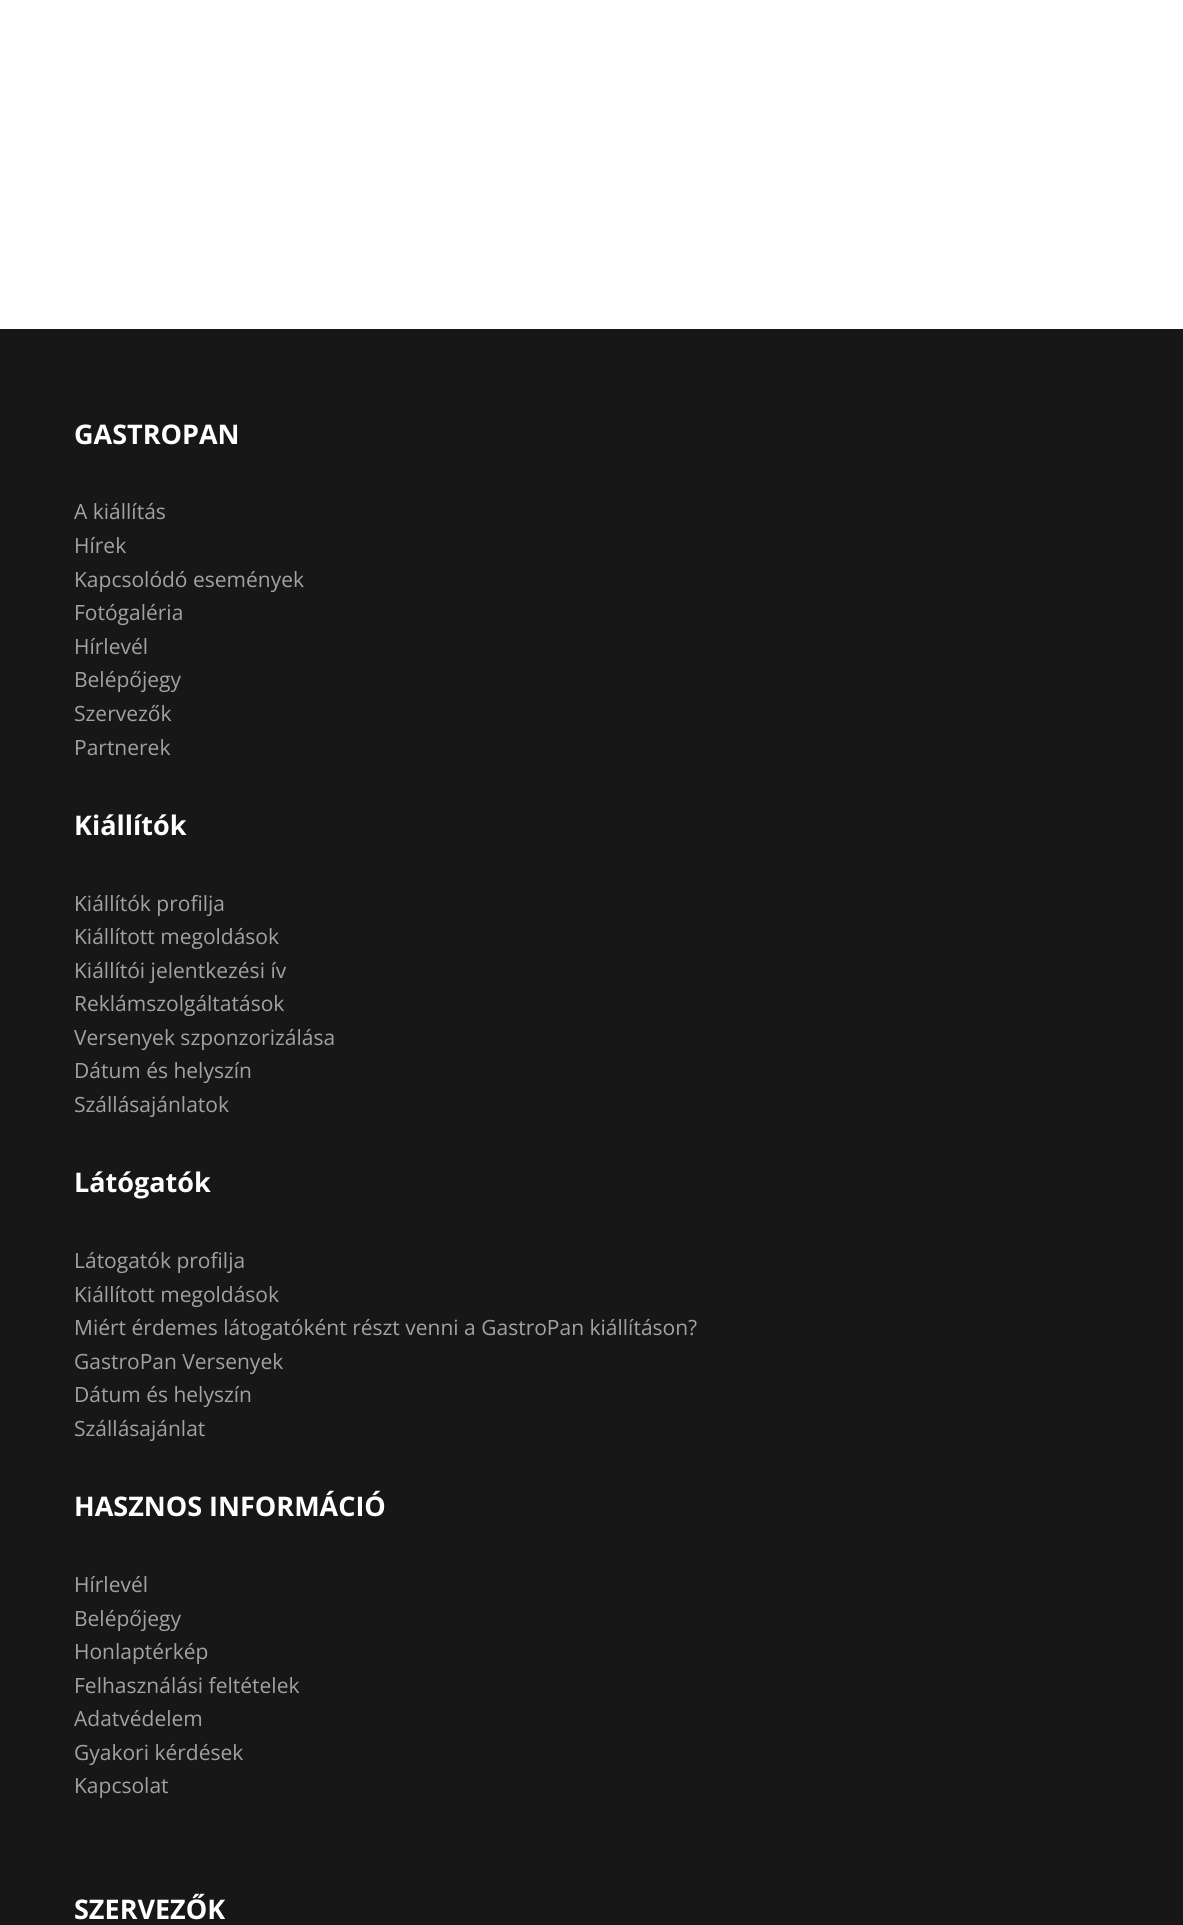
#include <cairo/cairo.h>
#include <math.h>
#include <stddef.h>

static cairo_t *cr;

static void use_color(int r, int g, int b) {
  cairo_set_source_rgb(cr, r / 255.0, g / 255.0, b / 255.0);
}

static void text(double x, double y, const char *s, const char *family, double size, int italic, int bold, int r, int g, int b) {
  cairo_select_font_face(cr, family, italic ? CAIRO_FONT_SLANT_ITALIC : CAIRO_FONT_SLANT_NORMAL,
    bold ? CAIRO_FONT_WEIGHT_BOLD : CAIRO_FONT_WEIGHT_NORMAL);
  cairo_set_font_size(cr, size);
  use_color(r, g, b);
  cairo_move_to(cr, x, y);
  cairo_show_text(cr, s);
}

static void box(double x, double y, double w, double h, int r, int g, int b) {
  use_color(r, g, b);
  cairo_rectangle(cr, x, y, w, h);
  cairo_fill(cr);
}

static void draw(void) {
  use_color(255, 255, 255);
  cairo_paint(cr);
  box(0, 329, 1183, 1596, 23, 23, 23);
  text(74, 444, "GASTROPAN", "Open Sans", 27, 0, 1, 255, 255, 255);
  text(74, 519, "A kiállítás", "Open Sans", 21, 0, 0, 162, 162, 162);
  text(74, 553, "Hírek", "Open Sans", 21, 0, 0, 162, 162, 162);
  text(74, 587, "Kapcsolódó események", "Open Sans", 21, 0, 0, 162, 162, 162);
  text(74, 620, "Fotógaléria", "Open Sans", 21, 0, 0, 162, 162, 162);
  text(74, 654, "Hírlevél", "Open Sans", 21, 0, 0, 162, 162, 162);
  text(74, 687, "Belépőjegy", "Open Sans", 21, 0, 0, 162, 162, 162);
  text(74, 721, "Szervezők", "Open Sans", 21, 0, 0, 162, 162, 162);
  text(74, 755, "Partnerek", "Open Sans", 21, 0, 0, 162, 162, 162);
  text(74, 835, "Kiállítók", "Open Sans", 27, 0, 1, 255, 255, 255);
  text(74, 911, "Kiállítók profilja", "Open Sans", 21, 0, 0, 162, 162, 162);
  text(74, 944, "Kiállított megoldások", "Open Sans", 21, 0, 0, 162, 162, 162);
  text(74, 978, "Kiállítói jelentkezési ív", "Open Sans", 21, 0, 0, 162, 162, 162);
  text(74, 1011, "Reklámszolgáltatások", "Open Sans", 21, 0, 0, 162, 162, 162);
  text(74, 1045, "Versenyek szponzorizálása", "Open Sans", 21, 0, 0, 162, 162, 162);
  text(74, 1078, "Dátum és helyszín", "Open Sans", 21, 0, 0, 162, 162, 162);
  text(74, 1112, "Szállásajánlatok", "Open Sans", 21, 0, 0, 162, 162, 162);
  text(74, 1192, "Látógatók", "Open Sans", 27, 0, 1, 255, 255, 255);
  text(74, 1268, "Látogatók profilja", "Open Sans", 21, 0, 0, 162, 162, 162);
  text(74, 1302, "Kiállított megoldások", "Open Sans", 21, 0, 0, 162, 162, 162);
  text(74, 1335, "Miért érdemes látogatóként részt venni a GastroPan kiállításon?", "Open Sans", 21, 0, 0, 162, 162, 162);
  text(74, 1369, "GastroPan Versenyek", "Open Sans", 21, 0, 0, 162, 162, 162);
  text(74, 1402, "Dátum és helyszín", "Open Sans", 21, 0, 0, 162, 162, 162);
  text(74, 1436, "Szállásajánlat", "Open Sans", 21, 0, 0, 162, 162, 162);
  text(74, 1516, "HASZNOS INFORMÁCIÓ", "Open Sans", 27, 0, 1, 255, 255, 255);
  text(74, 1592, "Hírlevél", "Open Sans", 21, 0, 0, 162, 162, 162);
  text(74, 1626, "Belépőjegy", "Open Sans", 21, 0, 0, 162, 162, 162);
  text(74, 1659, "Honlaptérkép", "Open Sans", 21, 0, 0, 162, 162, 162);
  text(74, 1693, "Felhasználási feltételek", "Open Sans", 21, 0, 0, 162, 162, 162);
  text(74, 1726, "Adatvédelem", "Open Sans", 21, 0, 0, 162, 162, 162);
  text(74, 1760, "Gyakori kérdések", "Open Sans", 21, 0, 0, 162, 162, 162);
  text(74, 1793, "Kapcsolat", "Open Sans", 21, 0, 0, 162, 162, 162);
  text(74, 1919, "SZERVEZŐK", "Open Sans", 27, 0, 1, 255, 255, 255);
}

int main(void) {
  cairo_surface_t *surface = cairo_image_surface_create(CAIRO_FORMAT_RGB24, 1183, 1925);
  cr = cairo_create(surface);
  cairo_font_options_t *options = cairo_font_options_create();
  cairo_font_options_set_hint_metrics(options, CAIRO_HINT_METRICS_OFF);
  cairo_font_options_set_hint_style(options, CAIRO_HINT_STYLE_NONE);
  cairo_set_font_options(cr, options);
  cairo_set_miter_limit(cr, 4);
  draw();
  cairo_surface_write_to_png(surface, "out.png");
  cairo_font_options_destroy(options);
  cairo_destroy(cr);
  cairo_surface_destroy(surface);
  return 0;
}
